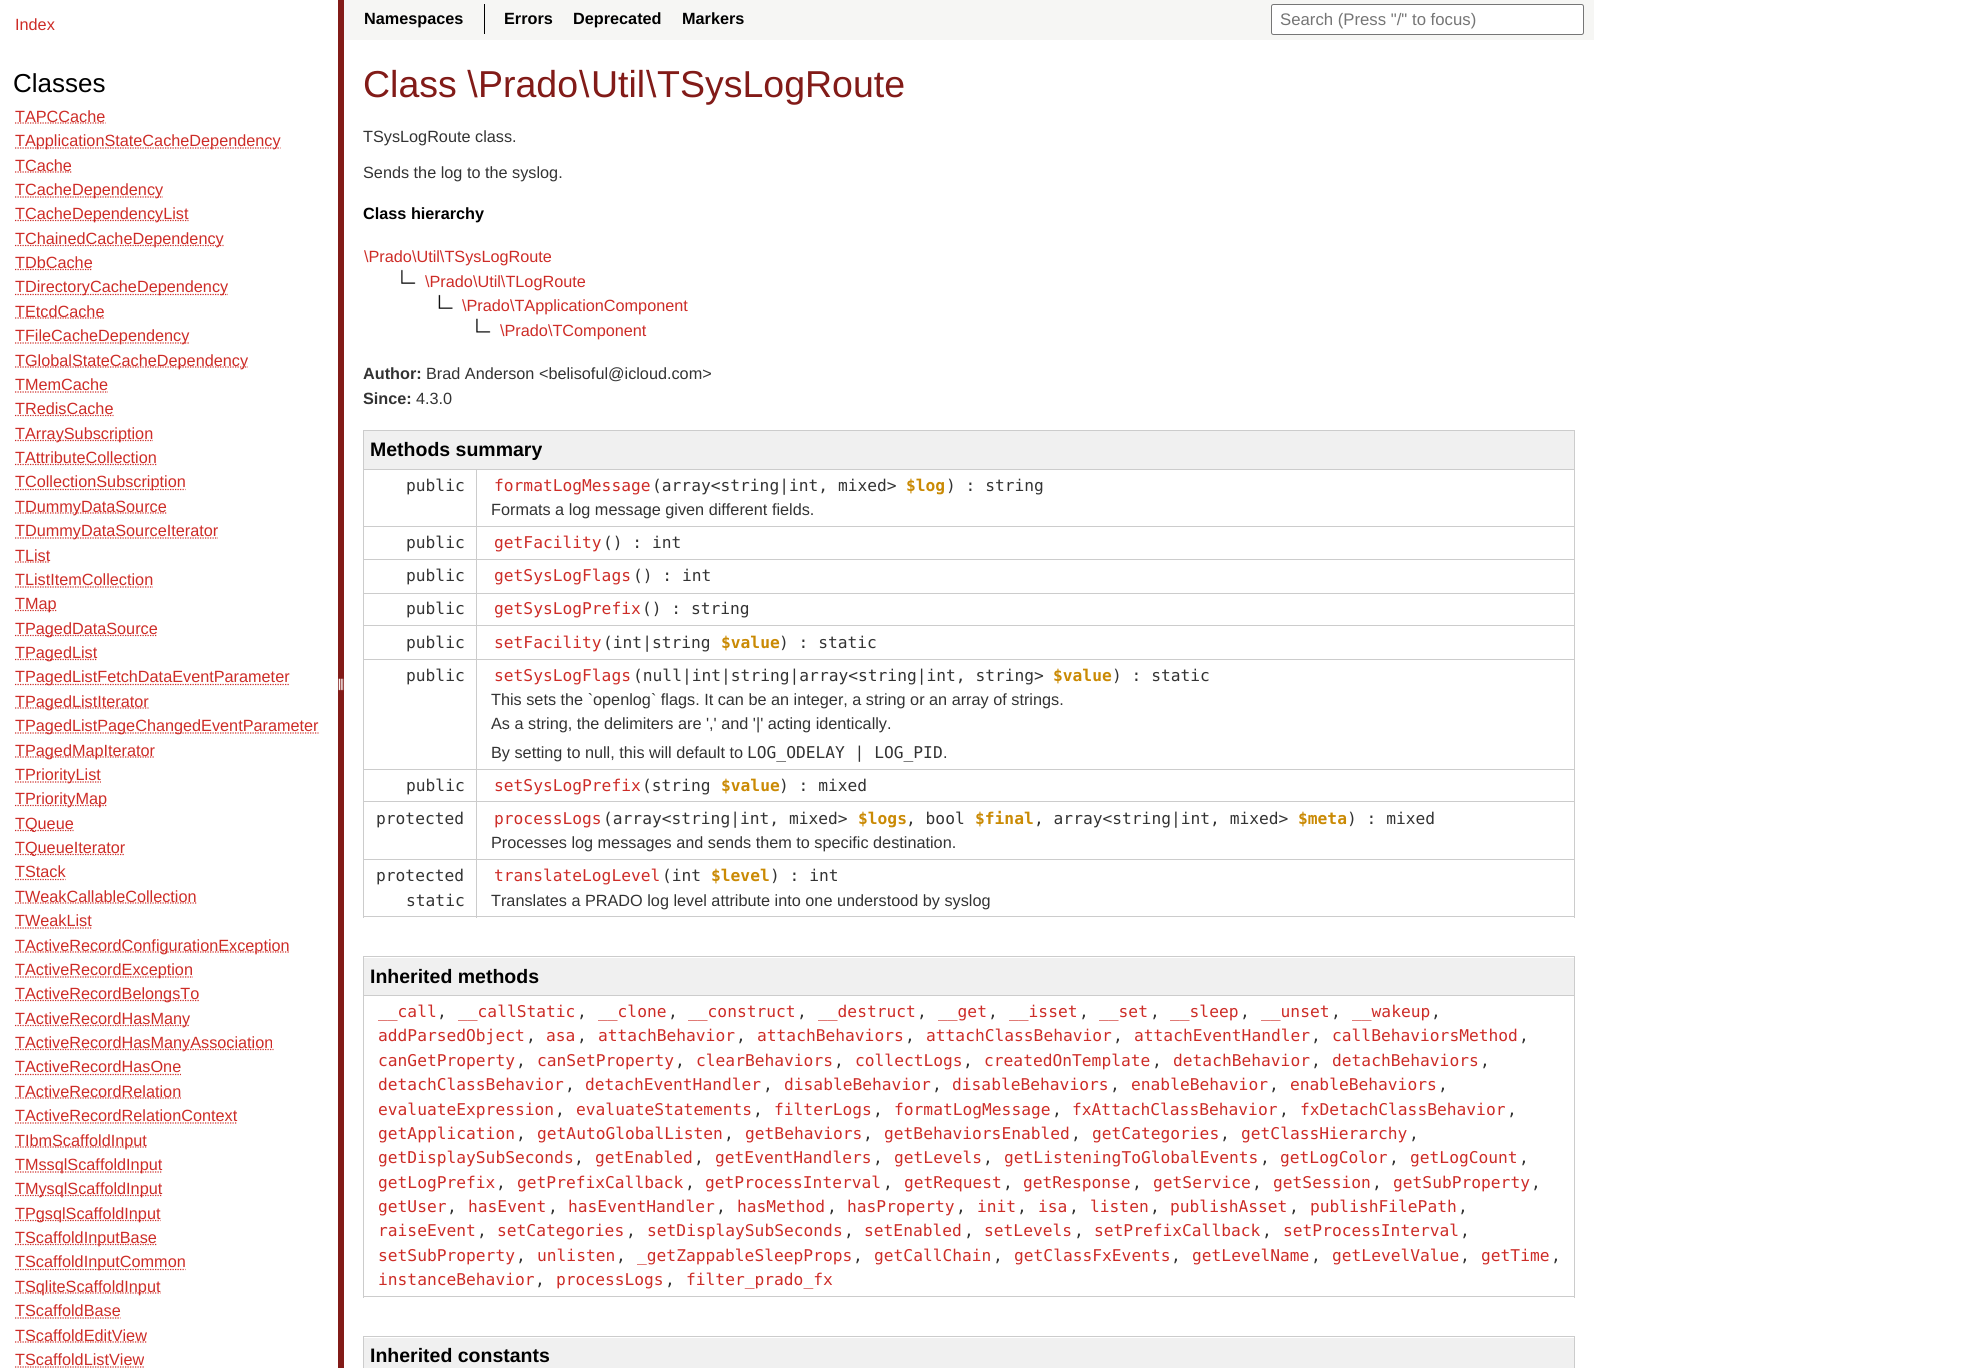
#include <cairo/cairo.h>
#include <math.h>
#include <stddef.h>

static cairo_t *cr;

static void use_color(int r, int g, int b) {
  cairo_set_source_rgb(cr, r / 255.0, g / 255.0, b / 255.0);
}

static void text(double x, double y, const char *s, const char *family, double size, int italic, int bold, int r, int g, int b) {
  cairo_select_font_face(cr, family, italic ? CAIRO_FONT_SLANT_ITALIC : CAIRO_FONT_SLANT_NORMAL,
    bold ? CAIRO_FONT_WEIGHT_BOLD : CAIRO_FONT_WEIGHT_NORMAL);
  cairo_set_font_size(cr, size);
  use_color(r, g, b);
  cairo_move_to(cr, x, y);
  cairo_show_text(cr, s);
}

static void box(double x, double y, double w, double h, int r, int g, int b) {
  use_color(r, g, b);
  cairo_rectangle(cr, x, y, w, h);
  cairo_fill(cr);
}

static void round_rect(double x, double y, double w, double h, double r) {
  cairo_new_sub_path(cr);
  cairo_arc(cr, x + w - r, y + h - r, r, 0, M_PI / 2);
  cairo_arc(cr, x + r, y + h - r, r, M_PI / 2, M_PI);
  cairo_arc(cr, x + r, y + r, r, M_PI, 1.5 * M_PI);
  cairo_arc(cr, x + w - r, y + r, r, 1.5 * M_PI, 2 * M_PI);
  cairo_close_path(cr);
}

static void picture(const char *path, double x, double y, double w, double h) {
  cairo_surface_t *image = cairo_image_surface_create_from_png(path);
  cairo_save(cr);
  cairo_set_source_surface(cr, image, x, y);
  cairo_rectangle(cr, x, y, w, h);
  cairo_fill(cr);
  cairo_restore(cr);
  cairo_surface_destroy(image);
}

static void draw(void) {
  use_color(255, 255, 255);
  cairo_paint(cr);
  cairo_new_path(cr);
  cairo_move_to(cr, 15, 123);
  cairo_line_to(cr, 105.5, 123);
  use_color(205, 44, 39);
  cairo_set_line_width(cr, 1.2);
  cairo_set_dash(cr, (double[]){1.25, 1.25}, 2, 0);
  cairo_stroke(cr);
  cairo_new_path(cr);
  cairo_move_to(cr, 15, 148);
  cairo_line_to(cr, 280.5, 148);
  cairo_stroke(cr);
  cairo_new_path(cr);
  cairo_move_to(cr, 15, 172);
  cairo_line_to(cr, 72, 172);
  cairo_stroke(cr);
  cairo_new_path(cr);
  cairo_move_to(cr, 15, 197);
  cairo_line_to(cr, 163, 197);
  cairo_stroke(cr);
  cairo_new_path(cr);
  cairo_move_to(cr, 15, 220.5);
  cairo_line_to(cr, 188.5, 220.5);
  cairo_stroke(cr);
  cairo_new_path(cr);
  cairo_move_to(cr, 15, 245.5);
  cairo_line_to(cr, 223.5, 245.5);
  cairo_stroke(cr);
  cairo_new_path(cr);
  cairo_move_to(cr, 15, 269.5);
  cairo_line_to(cr, 92.5, 269.5);
  cairo_stroke(cr);
  cairo_new_path(cr);
  cairo_move_to(cr, 15, 294.5);
  cairo_line_to(cr, 228, 294.5);
  cairo_stroke(cr);
  cairo_new_path(cr);
  cairo_move_to(cr, 15, 318);
  cairo_line_to(cr, 104.5, 318);
  cairo_stroke(cr);
  cairo_new_path(cr);
  cairo_move_to(cr, 15, 343);
  cairo_line_to(cr, 189.5, 343);
  cairo_stroke(cr);
  cairo_new_path(cr);
  cairo_move_to(cr, 15, 367);
  cairo_line_to(cr, 248, 367);
  cairo_stroke(cr);
  cairo_new_path(cr);
  cairo_move_to(cr, 15, 392);
  cairo_line_to(cr, 108, 392);
  cairo_stroke(cr);
  cairo_new_path(cr);
  cairo_move_to(cr, 15, 415.5);
  cairo_line_to(cr, 113.5, 415.5);
  cairo_stroke(cr);
  cairo_new_path(cr);
  cairo_move_to(cr, 15, 440.5);
  cairo_line_to(cr, 153, 440.5);
  cairo_stroke(cr);
  cairo_new_path(cr);
  cairo_move_to(cr, 15, 464.5);
  cairo_line_to(cr, 157, 464.5);
  cairo_stroke(cr);
  cairo_new_path(cr);
  cairo_move_to(cr, 15, 489.5);
  cairo_line_to(cr, 185.5, 489.5);
  cairo_stroke(cr);
  cairo_new_path(cr);
  cairo_move_to(cr, 15, 513);
  cairo_line_to(cr, 166.5, 513);
  cairo_stroke(cr);
  cairo_new_path(cr);
  cairo_move_to(cr, 15, 538);
  cairo_line_to(cr, 218, 538);
  cairo_stroke(cr);
  cairo_new_path(cr);
  cairo_move_to(cr, 15, 562);
  cairo_line_to(cr, 50, 562);
  cairo_stroke(cr);
  cairo_new_path(cr);
  cairo_move_to(cr, 15, 587);
  cairo_line_to(cr, 153, 587);
  cairo_stroke(cr);
  cairo_new_path(cr);
  cairo_move_to(cr, 15, 610.5);
  cairo_line_to(cr, 56.5, 610.5);
  cairo_stroke(cr);
  cairo_new_path(cr);
  cairo_move_to(cr, 15, 635.5);
  cairo_line_to(cr, 157.5, 635.5);
  cairo_stroke(cr);
  cairo_new_path(cr);
  cairo_move_to(cr, 15, 659.5);
  cairo_line_to(cr, 97, 659.5);
  cairo_stroke(cr);
  cairo_new_path(cr);
  cairo_move_to(cr, 15, 684.5);
  cairo_line_to(cr, 289.5, 684.5);
  cairo_stroke(cr);
  cairo_new_path(cr);
  cairo_move_to(cr, 15, 708);
  cairo_line_to(cr, 148.5, 708);
  cairo_stroke(cr);
  cairo_new_path(cr);
  cairo_move_to(cr, 15, 733);
  cairo_line_to(cr, 318.5, 733);
  cairo_stroke(cr);
  cairo_new_path(cr);
  cairo_move_to(cr, 15, 757);
  cairo_line_to(cr, 155, 757);
  cairo_stroke(cr);
  cairo_new_path(cr);
  cairo_move_to(cr, 15, 782);
  cairo_line_to(cr, 101, 782);
  cairo_stroke(cr);
  cairo_new_path(cr);
  cairo_move_to(cr, 15, 805.5);
  cairo_line_to(cr, 107, 805.5);
  cairo_stroke(cr);
  cairo_new_path(cr);
  cairo_move_to(cr, 15, 830.5);
  cairo_line_to(cr, 73.5, 830.5);
  cairo_stroke(cr);
  cairo_new_path(cr);
  cairo_move_to(cr, 15, 854.5);
  cairo_line_to(cr, 125, 854.5);
  cairo_stroke(cr);
  cairo_new_path(cr);
  cairo_move_to(cr, 15, 879.5);
  cairo_line_to(cr, 65.5, 879.5);
  cairo_stroke(cr);
  cairo_new_path(cr);
  cairo_move_to(cr, 15, 903);
  cairo_line_to(cr, 196.5, 903);
  cairo_stroke(cr);
  cairo_new_path(cr);
  cairo_move_to(cr, 15, 928);
  cairo_line_to(cr, 92, 928);
  cairo_stroke(cr);
  cairo_new_path(cr);
  cairo_move_to(cr, 15, 952);
  cairo_line_to(cr, 289.5, 952);
  cairo_stroke(cr);
  cairo_new_path(cr);
  cairo_move_to(cr, 15, 977);
  cairo_line_to(cr, 193, 977);
  cairo_stroke(cr);
  cairo_new_path(cr);
  cairo_move_to(cr, 15, 1000.5);
  cairo_line_to(cr, 199.5, 1000.5);
  cairo_stroke(cr);
  cairo_new_path(cr);
  cairo_move_to(cr, 15, 1025.5);
  cairo_line_to(cr, 190, 1025.5);
  cairo_stroke(cr);
  cairo_new_path(cr);
  cairo_move_to(cr, 15, 1049.5);
  cairo_line_to(cr, 273.5, 1049.5);
  cairo_stroke(cr);
  cairo_new_path(cr);
  cairo_move_to(cr, 15, 1074.5);
  cairo_line_to(cr, 181, 1074.5);
  cairo_stroke(cr);
  cairo_new_path(cr);
  cairo_move_to(cr, 15, 1098);
  cairo_line_to(cr, 181, 1098);
  cairo_stroke(cr);
  cairo_new_path(cr);
  cairo_move_to(cr, 15, 1123);
  cairo_line_to(cr, 237, 1123);
  cairo_stroke(cr);
  cairo_new_path(cr);
  cairo_move_to(cr, 15, 1147);
  cairo_line_to(cr, 147, 1147);
  cairo_stroke(cr);
  cairo_new_path(cr);
  cairo_move_to(cr, 15, 1172);
  cairo_line_to(cr, 162, 1172);
  cairo_stroke(cr);
  cairo_new_path(cr);
  cairo_move_to(cr, 15, 1195.5);
  cairo_line_to(cr, 162, 1195.5);
  cairo_stroke(cr);
  cairo_new_path(cr);
  cairo_move_to(cr, 15, 1220.5);
  cairo_line_to(cr, 160.5, 1220.5);
  cairo_stroke(cr);
  cairo_new_path(cr);
  cairo_move_to(cr, 15, 1244.5);
  cairo_line_to(cr, 157, 1244.5);
  cairo_stroke(cr);
  cairo_new_path(cr);
  cairo_move_to(cr, 15, 1269.5);
  cairo_line_to(cr, 185.5, 1269.5);
  cairo_stroke(cr);
  cairo_new_path(cr);
  cairo_move_to(cr, 15, 1293);
  cairo_line_to(cr, 160.5, 1293);
  cairo_stroke(cr);
  cairo_new_path(cr);
  cairo_move_to(cr, 15, 1318);
  cairo_line_to(cr, 120.5, 1318);
  cairo_stroke(cr);
  cairo_new_path(cr);
  cairo_move_to(cr, 15, 1342);
  cairo_line_to(cr, 147, 1342);
  cairo_stroke(cr);
  cairo_new_path(cr);
  cairo_move_to(cr, 15, 1367);
  cairo_line_to(cr, 144, 1367);
  cairo_stroke(cr);
  box(338, 0, 6, 1368, 130, 27, 24);
  picture("img_01.png", 338, 678, 6, 13);
  box(344, 0, 1250, 40, 246, 246, 244);
  box(484, 4, 1, 30, 0, 0, 0);
  use_color(255, 255, 255);
  round_rect(1271.5, 4.5, 312, 30, 2);
  cairo_fill_preserve(cr);
  use_color(118, 118, 118);
  cairo_set_line_width(cr, 1);
  cairo_set_dash(cr, NULL, 0, 0);
  cairo_stroke(cr);
  picture("img_02.png", 401, 269, 15, 15);
  picture("img_03.png", 438, 294, 15, 15);
  picture("img_04.png", 476, 318, 15, 15);
  box(363, 430, 1212, 1, 204, 204, 204);
  box(1574, 430, 1, 488, 204, 204, 204);
  box(363, 916, 1212, 1, 204, 204, 204);
  box(363, 430, 1, 488, 204, 204, 204);
  box(364, 431, 1210, 38, 240, 240, 240);
  box(476, 469, 1099, 1, 204, 204, 204);
  box(476, 526, 1099, 1, 204, 204, 204);
  box(476, 559, 1099, 1, 204, 204, 204);
  box(476, 593, 1099, 1, 204, 204, 204);
  box(476, 625, 1099, 1, 204, 204, 204);
  box(476, 659, 1099, 1, 204, 204, 204);
  box(476, 769, 1099, 1, 204, 204, 204);
  box(476, 801, 1099, 1, 204, 204, 204);
  box(476, 859, 1099, 1, 204, 204, 204);
  box(476, 859, 1, 59, 204, 204, 204);
  box(363, 859, 115, 1, 204, 204, 204);
  box(476, 801, 1, 59, 204, 204, 204);
  box(363, 801, 115, 1, 204, 204, 204);
  box(476, 769, 1, 34, 204, 204, 204);
  box(363, 769, 115, 1, 204, 204, 204);
  box(476, 659, 1, 111, 204, 204, 204);
  box(363, 659, 115, 1, 204, 204, 204);
  box(476, 625, 1, 35, 204, 204, 204);
  box(363, 625, 115, 1, 204, 204, 204);
  box(476, 593, 1, 33, 204, 204, 204);
  box(363, 593, 115, 1, 204, 204, 204);
  box(476, 559, 1, 35, 204, 204, 204);
  box(363, 559, 115, 1, 204, 204, 204);
  box(476, 526, 1, 34, 204, 204, 204);
  box(363, 526, 115, 1, 204, 204, 204);
  box(476, 469, 1, 59, 204, 204, 204);
  box(363, 469, 115, 1, 204, 204, 204);
  box(363, 956, 1212, 1, 204, 204, 204);
  box(1574, 956, 1, 342, 204, 204, 204);
  box(363, 1296, 1212, 1, 204, 204, 204);
  box(363, 956, 1, 342, 204, 204, 204);
  box(364, 958, 1210, 37, 240, 240, 240);
  box(363, 995, 1212, 1, 204, 204, 204);
  box(364, 1338, 1210, 30, 240, 240, 240);
  box(363, 1336, 1212, 1, 204, 204, 204);
  box(1574, 1336, 1, 32, 204, 204, 204);
  box(363, 1336, 1, 32, 204, 204, 204);
  text(15, 30, "Index", "Liberation Sans", 16.25, 0, 0, 205, 44, 39);
  text(13, 92, "Classes", "Liberation Sans", 26, 0, 0, 0, 0, 0);
  text(15, 122, "TAPCCache", "Liberation Sans", 16.25, 0, 0, 205, 44, 39);
  text(15, 146, "TApplicationStateCacheDependency", "Liberation Sans", 16.25, 0, 0, 205, 44, 39);
  text(15, 171, "TCache", "Liberation Sans", 16.25, 0, 0, 205, 44, 39);
  text(15, 195, "TCacheDependency", "Liberation Sans", 16.25, 0, 0, 205, 44, 39);
  text(15, 219, "TCacheDependencyList", "Liberation Sans", 16.25, 0, 0, 205, 44, 39);
  text(15, 244, "TChainedCacheDependency", "Liberation Sans", 16.25, 0, 0, 205, 44, 39);
  text(15, 268, "TDbCache", "Liberation Sans", 16.25, 0, 0, 205, 44, 39);
  text(15, 292, "TDirectoryCacheDependency", "Liberation Sans", 16.25, 0, 0, 205, 44, 39);
  text(15, 317, "TEtcdCache", "Liberation Sans", 16.25, 0, 0, 205, 44, 39);
  text(15, 341, "TFileCacheDependency", "Liberation Sans", 16.25, 0, 0, 205, 44, 39);
  text(15, 366, "TGlobalStateCacheDependency", "Liberation Sans", 16.25, 0, 0, 205, 44, 39);
  text(15, 390, "TMemCache", "Liberation Sans", 16.25, 0, 0, 205, 44, 39);
  text(15, 414, "TRedisCache", "Liberation Sans", 16.25, 0, 0, 205, 44, 39);
  text(15, 439, "TArraySubscription", "Liberation Sans", 16.25, 0, 0, 205, 44, 39);
  text(15, 463, "TAttributeCollection", "Liberation Sans", 16.25, 0, 0, 205, 44, 39);
  text(15, 487, "TCollectionSubscription", "Liberation Sans", 16.25, 0, 0, 205, 44, 39);
  text(15, 512, "TDummyDataSource", "Liberation Sans", 16.25, 0, 0, 205, 44, 39);
  text(15, 536, "TDummyDataSourceIterator", "Liberation Sans", 16.25, 0, 0, 205, 44, 39);
  text(15, 561, "TList", "Liberation Sans", 16.25, 0, 0, 205, 44, 39);
  text(15, 585, "TListItemCollection", "Liberation Sans", 16.25, 0, 0, 205, 44, 39);
  text(15, 609, "TMap", "Liberation Sans", 16.25, 0, 0, 205, 44, 39);
  text(15, 634, "TPagedDataSource", "Liberation Sans", 16.25, 0, 0, 205, 44, 39);
  text(15, 658, "TPagedList", "Liberation Sans", 16.25, 0, 0, 205, 44, 39);
  text(15, 682, "TPagedListFetchDataEventParameter", "Liberation Sans", 16.25, 0, 0, 205, 44, 39);
  text(15, 707, "TPagedListIterator", "Liberation Sans", 16.25, 0, 0, 205, 44, 39);
  text(15, 731, "TPagedListPageChangedEventParameter", "Liberation Sans", 16.25, 0, 0, 205, 44, 39);
  text(15, 756, "TPagedMapIterator", "Liberation Sans", 16.25, 0, 0, 205, 44, 39);
  text(15, 780, "TPriorityList", "Liberation Sans", 16.25, 0, 0, 205, 44, 39);
  text(15, 804, "TPriorityMap", "Liberation Sans", 16.25, 0, 0, 205, 44, 39);
  text(15, 829, "TQueue", "Liberation Sans", 16.25, 0, 0, 205, 44, 39);
  text(15, 853, "TQueueIterator", "Liberation Sans", 16.25, 0, 0, 205, 44, 39);
  text(15, 877, "TStack", "Liberation Sans", 16.25, 0, 0, 205, 44, 39);
  text(15, 902, "TWeakCallableCollection", "Liberation Sans", 16.25, 0, 0, 205, 44, 39);
  text(15, 926, "TWeakList", "Liberation Sans", 16.25, 0, 0, 205, 44, 39);
  text(15, 951, "TActiveRecordConfigurationException", "Liberation Sans", 16.25, 0, 0, 205, 44, 39);
  text(15, 975, "TActiveRecordException", "Liberation Sans", 16.25, 0, 0, 205, 44, 39);
  text(15, 999, "TActiveRecordBelongsTo", "Liberation Sans", 16.25, 0, 0, 205, 44, 39);
  text(15, 1024, "TActiveRecordHasMany", "Liberation Sans", 16.25, 0, 0, 205, 44, 39);
  text(15, 1048, "TActiveRecordHasManyAssociation", "Liberation Sans", 16.25, 0, 0, 205, 44, 39);
  text(15, 1072, "TActiveRecordHasOne", "Liberation Sans", 16.25, 0, 0, 205, 44, 39);
  text(15, 1097, "TActiveRecordRelation", "Liberation Sans", 16.25, 0, 0, 205, 44, 39);
  text(15, 1121, "TActiveRecordRelationContext", "Liberation Sans", 16.25, 0, 0, 205, 44, 39);
  text(15, 1146, "TIbmScaffoldInput", "Liberation Sans", 16.25, 0, 0, 205, 44, 39);
  text(15, 1170, "TMssqlScaffoldInput", "Liberation Sans", 16.25, 0, 0, 205, 44, 39);
  text(15, 1194, "TMysqlScaffoldInput", "Liberation Sans", 16.25, 0, 0, 205, 44, 39);
  text(15, 1219, "TPgsqlScaffoldInput", "Liberation Sans", 16.25, 0, 0, 205, 44, 39);
  text(15, 1243, "TScaffoldInputBase", "Liberation Sans", 16.25, 0, 0, 205, 44, 39);
  text(15, 1267, "TScaffoldInputCommon", "Liberation Sans", 16.25, 0, 0, 205, 44, 39);
  text(15, 1292, "TSqliteScaffoldInput", "Liberation Sans", 16.25, 0, 0, 205, 44, 39);
  text(15, 1316, "TScaffoldBase", "Liberation Sans", 16.25, 0, 0, 205, 44, 39);
  text(15, 1341, "TScaffoldEditView", "Liberation Sans", 16.25, 0, 0, 205, 44, 39);
  text(15, 1365, "TScaffoldListView", "Liberation Sans", 16.25, 0, 0, 205, 44, 39);
  text(364, 24, "Namespaces", "Liberation Sans", 16.25, 0, 1, 0, 0, 0);
  text(504, 24, "Errors", "Liberation Sans", 16.25, 0, 1, 0, 0, 0);
  text(573, 24, "Deprecated", "Liberation Sans", 16.25, 0, 1, 0, 0, 0);
  text(682, 24, "Markers", "Liberation Sans", 16.25, 0, 1, 0, 0, 0);
  text(1280, 25, "Search (Press \"/\" to focus)", "Liberation Sans", 16.75, 0, 0, 117, 117, 117);
  text(363, 97, "Class \\", "Liberation Sans", 37.5, 0, 0, 130, 27, 24);
  text(478, 97, "Prado", "Liberation Sans", 37.5, 0, 0, 130, 27, 24);
  text(579, 97, "\\", "Liberation Sans", 37.5, 0, 0, 130, 27, 24);
  text(591, 97, "Util", "Liberation Sans", 37.5, 0, 0, 130, 27, 24);
  text(646, 97, "\\", "Liberation Sans", 37.5, 0, 0, 130, 27, 24);
  text(657, 97, "TSysLogRoute", "Liberation Sans", 37.5, 0, 0, 130, 27, 24);
  text(363, 142, "TSysLogRoute class.", "Liberation Sans", 16.25, 0, 0, 51, 51, 51);
  text(363, 178, "Sends the log to the syslog.", "Liberation Sans", 16.25, 0, 0, 51, 51, 51);
  text(363, 219, "Class hierarchy", "Liberation Sans", 16.25, 0, 1, 0, 0, 0);
  text(364, 262, "\\Prado\\Util\\TSysLogRoute", "Liberation Sans", 16.25, 0, 0, 205, 44, 39);
  text(425, 287, "\\Prado\\Util\\TLogRoute", "Liberation Sans", 16.25, 0, 0, 205, 44, 39);
  text(462, 311, "\\Prado\\TApplicationComponent", "Liberation Sans", 16.25, 0, 0, 205, 44, 39);
  text(500, 336, "\\Prado\\TComponent", "Liberation Sans", 16.25, 0, 0, 205, 44, 39);
  text(363, 379, "Author:", "Liberation Sans", 16.25, 0, 1, 51, 51, 51);
  text(426, 379, "Brad Anderson <belisoful@icloud.com>", "Liberation Sans", 16.25, 0, 0, 51, 51, 51);
  text(363, 404, "Since:", "Liberation Sans", 16.25, 0, 1, 51, 51, 51);
  text(416, 404, "4.3.0", "Liberation Sans", 16.25, 0, 0, 51, 51, 51);
  text(370, 456, "Methods summary", "Liberation Sans", 19.5, 0, 1, 0, 0, 0);
  text(406, 491, "public", "DejaVu Sans Mono", 16.25, 0, 0, 51, 51, 51);
  text(494, 491, "formatLogMessage", "DejaVu Sans Mono", 16.25, 0, 0, 205, 44, 39);
  text(652, 491, "(array<string|int, mixed>", "DejaVu Sans Mono", 16.25, 0, 0, 51, 51, 51);
  text(906, 491, "$log", "DejaVu Sans Mono", 16.25, 0, 1, 202, 138, 4);
  text(946, 491, ") : string", "DejaVu Sans Mono", 16.25, 0, 0, 51, 51, 51);
  text(491, 515, "Formats a log message given different fields.", "Liberation Sans", 16.25, 0, 0, 51, 51, 51);
  text(406, 548, "public", "DejaVu Sans Mono", 16.25, 0, 0, 51, 51, 51);
  text(494, 548, "getFacility", "DejaVu Sans Mono", 16.25, 0, 0, 205, 44, 39);
  text(603, 548, "() : int", "DejaVu Sans Mono", 16.25, 0, 0, 51, 51, 51);
  text(406, 581, "public", "DejaVu Sans Mono", 16.25, 0, 0, 51, 51, 51);
  text(494, 581, "getSysLogFlags", "DejaVu Sans Mono", 16.25, 0, 0, 205, 44, 39);
  text(633, 581, "() : int", "DejaVu Sans Mono", 16.25, 0, 0, 51, 51, 51);
  text(406, 614, "public", "DejaVu Sans Mono", 16.25, 0, 0, 51, 51, 51);
  text(494, 614, "getSysLogPrefix", "DejaVu Sans Mono", 16.25, 0, 0, 205, 44, 39);
  text(642, 614, "() : string", "DejaVu Sans Mono", 16.25, 0, 0, 51, 51, 51);
  text(406, 648, "public", "DejaVu Sans Mono", 16.25, 0, 0, 51, 51, 51);
  text(494, 648, "setFacility", "DejaVu Sans Mono", 16.25, 0, 0, 205, 44, 39);
  text(603, 648, "(int|string", "DejaVu Sans Mono", 16.25, 0, 0, 51, 51, 51);
  text(721, 648, "$value", "DejaVu Sans Mono", 16.25, 0, 1, 202, 138, 4);
  text(779, 648, ") : static", "DejaVu Sans Mono", 16.25, 0, 0, 51, 51, 51);
  text(406, 681, "public", "DejaVu Sans Mono", 16.25, 0, 0, 51, 51, 51);
  text(494, 681, "setSysLogFlags", "DejaVu Sans Mono", 16.25, 0, 0, 205, 44, 39);
  text(633, 681, "(null|int|string|array<string|int, string>", "DejaVu Sans Mono", 16.25, 0, 0, 51, 51, 51);
  text(1053, 681, "$value", "DejaVu Sans Mono", 16.25, 0, 1, 202, 138, 4);
  text(1112, 681, ") : static", "DejaVu Sans Mono", 16.25, 0, 0, 51, 51, 51);
  text(491, 705, "This sets the `openlog` flags. It can be an integer, a string or an array of strings.", "Liberation Sans", 16.25, 0, 0, 51, 51, 51);
  text(491, 729, "As a string, the delimiters are ',' and '|' acting identically.", "Liberation Sans", 16.25, 0, 0, 51, 51, 51);
  text(491, 758, "By setting to null, this will default to", "Liberation Sans", 16.25, 0, 0, 51, 51, 51);
  text(747, 758, "LOG_ODELAY | LOG_PID", "DejaVu Sans Mono", 16.25, 0, 0, 51, 51, 51);
  text(943, 758, ".", "Liberation Sans", 16.25, 0, 0, 51, 51, 51);
  text(406, 791, "public", "DejaVu Sans Mono", 16.25, 0, 0, 51, 51, 51);
  text(494, 791, "setSysLogPrefix", "DejaVu Sans Mono", 16.25, 0, 0, 205, 44, 39);
  text(642, 791, "(string", "DejaVu Sans Mono", 16.25, 0, 0, 51, 51, 51);
  text(721, 791, "$value", "DejaVu Sans Mono", 16.25, 0, 1, 202, 138, 4);
  text(779, 791, ") : mixed", "DejaVu Sans Mono", 16.25, 0, 0, 51, 51, 51);
  text(376, 824, "protected", "DejaVu Sans Mono", 16.25, 0, 0, 51, 51, 51);
  text(494, 824, "processLogs", "DejaVu Sans Mono", 16.25, 0, 0, 205, 44, 39);
  text(603, 824, "(array<string|int, mixed>", "DejaVu Sans Mono", 16.25, 0, 0, 51, 51, 51);
  text(858, 824, "$logs", "DejaVu Sans Mono", 16.25, 0, 1, 202, 138, 4);
  text(906, 824, ", bool", "DejaVu Sans Mono", 16.25, 0, 0, 51, 51, 51);
  text(975, 824, "$final", "DejaVu Sans Mono", 16.25, 0, 1, 202, 138, 4);
  text(1034, 824, ", array<string|int, mixed>", "DejaVu Sans Mono", 16.25, 0, 0, 51, 51, 51);
  text(1298, 824, "$meta", "DejaVu Sans Mono", 16.25, 0, 1, 202, 138, 4);
  text(1347, 824, ") : mixed", "DejaVu Sans Mono", 16.25, 0, 0, 51, 51, 51);
  text(491, 848, "Processes log messages and sends them to specific destination.", "Liberation Sans", 16.25, 0, 0, 51, 51, 51);
  text(376, 881, "protected", "DejaVu Sans Mono", 16.25, 0, 0, 51, 51, 51);
  text(406, 906, "static", "DejaVu Sans Mono", 16.25, 0, 0, 51, 51, 51);
  text(494, 881, "translateLogLevel", "DejaVu Sans Mono", 16.25, 0, 0, 205, 44, 39);
  text(662, 881, "(int", "DejaVu Sans Mono", 16.25, 0, 0, 51, 51, 51);
  text(711, 881, "$level", "DejaVu Sans Mono", 16.25, 0, 1, 202, 138, 4);
  text(770, 881, ") : int", "DejaVu Sans Mono", 16.25, 0, 0, 51, 51, 51);
  text(491, 906, "Translates a PRADO log level attribute into one understood by syslog", "Liberation Sans", 16.25, 0, 0, 51, 51, 51);
  text(370, 983, "Inherited methods", "Liberation Sans", 19.5, 0, 1, 0, 0, 0);
  text(378, 1017, "__call", "DejaVu Sans Mono", 16.25, 0, 0, 205, 44, 39);
  text(437, 1017, ",", "DejaVu Sans Mono", 16.25, 0, 0, 51, 51, 51);
  text(458, 1017, "__callStatic", "DejaVu Sans Mono", 16.25, 0, 0, 205, 44, 39);
  text(577, 1017, ",", "DejaVu Sans Mono", 16.25, 0, 0, 51, 51, 51);
  text(598, 1017, "__clone", "DejaVu Sans Mono", 16.25, 0, 0, 205, 44, 39);
  text(668, 1017, ",", "DejaVu Sans Mono", 16.25, 0, 0, 51, 51, 51);
  text(688, 1017, "__construct", "DejaVu Sans Mono", 16.25, 0, 0, 205, 44, 39);
  text(797, 1017, ",", "DejaVu Sans Mono", 16.25, 0, 0, 51, 51, 51);
  text(818, 1017, "__destruct", "DejaVu Sans Mono", 16.25, 0, 0, 205, 44, 39);
  text(917, 1017, ",", "DejaVu Sans Mono", 16.25, 0, 0, 51, 51, 51);
  text(938, 1017, "__get", "DejaVu Sans Mono", 16.25, 0, 0, 205, 44, 39);
  text(988, 1017, ",", "DejaVu Sans Mono", 16.25, 0, 0, 51, 51, 51);
  text(1009, 1017, "__isset", "DejaVu Sans Mono", 16.25, 0, 0, 205, 44, 39);
  text(1079, 1017, ",", "DejaVu Sans Mono", 16.25, 0, 0, 51, 51, 51);
  text(1099, 1017, "__set", "DejaVu Sans Mono", 16.25, 0, 0, 205, 44, 39);
  text(1150, 1017, ",", "DejaVu Sans Mono", 16.25, 0, 0, 51, 51, 51);
  text(1170, 1017, "__sleep", "DejaVu Sans Mono", 16.25, 0, 0, 205, 44, 39);
  text(1240, 1017, ",", "DejaVu Sans Mono", 16.25, 0, 0, 51, 51, 51);
  text(1261, 1017, "__unset", "DejaVu Sans Mono", 16.25, 0, 0, 205, 44, 39);
  text(1331, 1017, ",", "DejaVu Sans Mono", 16.25, 0, 0, 51, 51, 51);
  text(1352, 1017, "__wakeup", "DejaVu Sans Mono", 16.25, 0, 0, 205, 44, 39);
  text(1431, 1017, ",", "DejaVu Sans Mono", 16.25, 0, 0, 51, 51, 51);
  text(378, 1041, "addParsedObject", "DejaVu Sans Mono", 16.25, 0, 0, 205, 44, 39);
  text(526, 1041, ",", "DejaVu Sans Mono", 16.25, 0, 0, 51, 51, 51);
  text(546, 1041, "asa", "DejaVu Sans Mono", 16.25, 0, 0, 205, 44, 39);
  text(577, 1041, ",", "DejaVu Sans Mono", 16.25, 0, 0, 51, 51, 51);
  text(598, 1041, "attachBehavior", "DejaVu Sans Mono", 16.25, 0, 0, 205, 44, 39);
  text(736, 1041, ",", "DejaVu Sans Mono", 16.25, 0, 0, 51, 51, 51);
  text(757, 1041, "attachBehaviors", "DejaVu Sans Mono", 16.25, 0, 0, 205, 44, 39);
  text(905, 1041, ",", "DejaVu Sans Mono", 16.25, 0, 0, 51, 51, 51);
  text(926, 1041, "attachClassBehavior", "DejaVu Sans Mono", 16.25, 0, 0, 205, 44, 39);
  text(1113, 1041, ",", "DejaVu Sans Mono", 16.25, 0, 0, 51, 51, 51);
  text(1134, 1041, "attachEventHandler", "DejaVu Sans Mono", 16.25, 0, 0, 205, 44, 39);
  text(1311, 1041, ",", "DejaVu Sans Mono", 16.25, 0, 0, 51, 51, 51);
  text(1332, 1041, "callBehaviorsMethod", "DejaVu Sans Mono", 16.25, 0, 0, 205, 44, 39);
  text(1519, 1041, ",", "DejaVu Sans Mono", 16.25, 0, 0, 51, 51, 51);
  text(378, 1066, "canGetProperty", "DejaVu Sans Mono", 16.25, 0, 0, 205, 44, 39);
  text(516, 1066, ",", "DejaVu Sans Mono", 16.25, 0, 0, 51, 51, 51);
  text(537, 1066, "canSetProperty", "DejaVu Sans Mono", 16.25, 0, 0, 205, 44, 39);
  text(675, 1066, ",", "DejaVu Sans Mono", 16.25, 0, 0, 51, 51, 51);
  text(696, 1066, "clearBehaviors", "DejaVu Sans Mono", 16.25, 0, 0, 205, 44, 39);
  text(834, 1066, ",", "DejaVu Sans Mono", 16.25, 0, 0, 51, 51, 51);
  text(855, 1066, "collectLogs", "DejaVu Sans Mono", 16.25, 0, 0, 205, 44, 39);
  text(963, 1066, ",", "DejaVu Sans Mono", 16.25, 0, 0, 51, 51, 51);
  text(984, 1066, "createdOnTemplate", "DejaVu Sans Mono", 16.25, 0, 0, 205, 44, 39);
  text(1152, 1066, ",", "DejaVu Sans Mono", 16.25, 0, 0, 51, 51, 51);
  text(1173, 1066, "detachBehavior", "DejaVu Sans Mono", 16.25, 0, 0, 205, 44, 39);
  text(1311, 1066, ",", "DejaVu Sans Mono", 16.25, 0, 0, 51, 51, 51);
  text(1332, 1066, "detachBehaviors", "DejaVu Sans Mono", 16.25, 0, 0, 205, 44, 39);
  text(1480, 1066, ",", "DejaVu Sans Mono", 16.25, 0, 0, 51, 51, 51);
  text(378, 1090, "detachClassBehavior", "DejaVu Sans Mono", 16.25, 0, 0, 205, 44, 39);
  text(565, 1090, ",", "DejaVu Sans Mono", 16.25, 0, 0, 51, 51, 51);
  text(585, 1090, "detachEventHandler", "DejaVu Sans Mono", 16.25, 0, 0, 205, 44, 39);
  text(763, 1090, ",", "DejaVu Sans Mono", 16.25, 0, 0, 51, 51, 51);
  text(784, 1090, "disableBehavior", "DejaVu Sans Mono", 16.25, 0, 0, 205, 44, 39);
  text(932, 1090, ",", "DejaVu Sans Mono", 16.25, 0, 0, 51, 51, 51);
  text(952, 1090, "disableBehaviors", "DejaVu Sans Mono", 16.25, 0, 0, 205, 44, 39);
  text(1110, 1090, ",", "DejaVu Sans Mono", 16.25, 0, 0, 51, 51, 51);
  text(1131, 1090, "enableBehavior", "DejaVu Sans Mono", 16.25, 0, 0, 205, 44, 39);
  text(1269, 1090, ",", "DejaVu Sans Mono", 16.25, 0, 0, 51, 51, 51);
  text(1290, 1090, "enableBehaviors", "DejaVu Sans Mono", 16.25, 0, 0, 205, 44, 39);
  text(1438, 1090, ",", "DejaVu Sans Mono", 16.25, 0, 0, 51, 51, 51);
  text(378, 1115, "evaluateExpression", "DejaVu Sans Mono", 16.25, 0, 0, 205, 44, 39);
  text(555, 1115, ",", "DejaVu Sans Mono", 16.25, 0, 0, 51, 51, 51);
  text(576, 1115, "evaluateStatements", "DejaVu Sans Mono", 16.25, 0, 0, 205, 44, 39);
  text(753, 1115, ",", "DejaVu Sans Mono", 16.25, 0, 0, 51, 51, 51);
  text(774, 1115, "filterLogs", "DejaVu Sans Mono", 16.25, 0, 0, 205, 44, 39);
  text(873, 1115, ",", "DejaVu Sans Mono", 16.25, 0, 0, 51, 51, 51);
  text(894, 1115, "formatLogMessage", "DejaVu Sans Mono", 16.25, 0, 0, 205, 44, 39);
  text(1052, 1115, ",", "DejaVu Sans Mono", 16.25, 0, 0, 51, 51, 51);
  text(1072, 1115, "fxAttachClassBehavior", "DejaVu Sans Mono", 16.25, 0, 0, 205, 44, 39);
  text(1279, 1115, ",", "DejaVu Sans Mono", 16.25, 0, 0, 51, 51, 51);
  text(1300, 1115, "fxDetachClassBehavior", "DejaVu Sans Mono", 16.25, 0, 0, 205, 44, 39);
  text(1507, 1115, ",", "DejaVu Sans Mono", 16.25, 0, 0, 51, 51, 51);
  text(378, 1139, "getApplication", "DejaVu Sans Mono", 16.25, 0, 0, 205, 44, 39);
  text(516, 1139, ",", "DejaVu Sans Mono", 16.25, 0, 0, 51, 51, 51);
  text(537, 1139, "getAutoGlobalListen", "DejaVu Sans Mono", 16.25, 0, 0, 205, 44, 39);
  text(724, 1139, ",", "DejaVu Sans Mono", 16.25, 0, 0, 51, 51, 51);
  text(745, 1139, "getBehaviors", "DejaVu Sans Mono", 16.25, 0, 0, 205, 44, 39);
  text(863, 1139, ",", "DejaVu Sans Mono", 16.25, 0, 0, 51, 51, 51);
  text(884, 1139, "getBehaviorsEnabled", "DejaVu Sans Mono", 16.25, 0, 0, 205, 44, 39);
  text(1071, 1139, ",", "DejaVu Sans Mono", 16.25, 0, 0, 51, 51, 51);
  text(1092, 1139, "getCategories", "DejaVu Sans Mono", 16.25, 0, 0, 205, 44, 39);
  text(1220, 1139, ",", "DejaVu Sans Mono", 16.25, 0, 0, 51, 51, 51);
  text(1241, 1139, "getClassHierarchy", "DejaVu Sans Mono", 16.25, 0, 0, 205, 44, 39);
  text(1409, 1139, ",", "DejaVu Sans Mono", 16.25, 0, 0, 51, 51, 51);
  text(378, 1163, "getDisplaySubSeconds", "DejaVu Sans Mono", 16.25, 0, 0, 205, 44, 39);
  text(574, 1163, ",", "DejaVu Sans Mono", 16.25, 0, 0, 51, 51, 51);
  text(595, 1163, "getEnabled", "DejaVu Sans Mono", 16.25, 0, 0, 205, 44, 39);
  text(694, 1163, ",", "DejaVu Sans Mono", 16.25, 0, 0, 51, 51, 51);
  text(715, 1163, "getEventHandlers", "DejaVu Sans Mono", 16.25, 0, 0, 205, 44, 39);
  text(873, 1163, ",", "DejaVu Sans Mono", 16.25, 0, 0, 51, 51, 51);
  text(894, 1163, "getLevels", "DejaVu Sans Mono", 16.25, 0, 0, 205, 44, 39);
  text(983, 1163, ",", "DejaVu Sans Mono", 16.25, 0, 0, 51, 51, 51);
  text(1004, 1163, "getListeningToGlobalEvents", "DejaVu Sans Mono", 16.25, 0, 0, 205, 44, 39);
  text(1260, 1163, ",", "DejaVu Sans Mono", 16.25, 0, 0, 51, 51, 51);
  text(1280, 1163, "getLogColor", "DejaVu Sans Mono", 16.25, 0, 0, 205, 44, 39);
  text(1389, 1163, ",", "DejaVu Sans Mono", 16.25, 0, 0, 51, 51, 51);
  text(1410, 1163, "getLogCount", "DejaVu Sans Mono", 16.25, 0, 0, 205, 44, 39);
  text(1519, 1163, ",", "DejaVu Sans Mono", 16.25, 0, 0, 51, 51, 51);
  text(378, 1188, "getLogPrefix", "DejaVu Sans Mono", 16.25, 0, 0, 205, 44, 39);
  text(496, 1188, ",", "DejaVu Sans Mono", 16.25, 0, 0, 51, 51, 51);
  text(517, 1188, "getPrefixCallback", "DejaVu Sans Mono", 16.25, 0, 0, 205, 44, 39);
  text(685, 1188, ",", "DejaVu Sans Mono", 16.25, 0, 0, 51, 51, 51);
  text(705, 1188, "getProcessInterval", "DejaVu Sans Mono", 16.25, 0, 0, 205, 44, 39);
  text(883, 1188, ",", "DejaVu Sans Mono", 16.25, 0, 0, 51, 51, 51);
  text(904, 1188, "getRequest", "DejaVu Sans Mono", 16.25, 0, 0, 205, 44, 39);
  text(1003, 1188, ",", "DejaVu Sans Mono", 16.25, 0, 0, 51, 51, 51);
  text(1023, 1188, "getResponse", "DejaVu Sans Mono", 16.25, 0, 0, 205, 44, 39);
  text(1132, 1188, ",", "DejaVu Sans Mono", 16.25, 0, 0, 51, 51, 51);
  text(1153, 1188, "getService", "DejaVu Sans Mono", 16.25, 0, 0, 205, 44, 39);
  text(1252, 1188, ",", "DejaVu Sans Mono", 16.25, 0, 0, 51, 51, 51);
  text(1273, 1188, "getSession", "DejaVu Sans Mono", 16.25, 0, 0, 205, 44, 39);
  text(1372, 1188, ",", "DejaVu Sans Mono", 16.25, 0, 0, 51, 51, 51);
  text(1393, 1188, "getSubProperty", "DejaVu Sans Mono", 16.25, 0, 0, 205, 44, 39);
  text(1531, 1188, ",", "DejaVu Sans Mono", 16.25, 0, 0, 51, 51, 51);
  text(378, 1212, "getUser", "DejaVu Sans Mono", 16.25, 0, 0, 205, 44, 39);
  text(447, 1212, ",", "DejaVu Sans Mono", 16.25, 0, 0, 51, 51, 51);
  text(468, 1212, "hasEvent", "DejaVu Sans Mono", 16.25, 0, 0, 205, 44, 39);
  text(548, 1212, ",", "DejaVu Sans Mono", 16.25, 0, 0, 51, 51, 51);
  text(568, 1212, "hasEventHandler", "DejaVu Sans Mono", 16.25, 0, 0, 205, 44, 39);
  text(716, 1212, ",", "DejaVu Sans Mono", 16.25, 0, 0, 51, 51, 51);
  text(737, 1212, "hasMethod", "DejaVu Sans Mono", 16.25, 0, 0, 205, 44, 39);
  text(827, 1212, ",", "DejaVu Sans Mono", 16.25, 0, 0, 51, 51, 51);
  text(847, 1212, "hasProperty", "DejaVu Sans Mono", 16.25, 0, 0, 205, 44, 39);
  text(956, 1212, ",", "DejaVu Sans Mono", 16.25, 0, 0, 51, 51, 51);
  text(977, 1212, "init", "DejaVu Sans Mono", 16.25, 0, 0, 205, 44, 39);
  text(1017, 1212, ",", "DejaVu Sans Mono", 16.25, 0, 0, 51, 51, 51);
  text(1038, 1212, "isa", "DejaVu Sans Mono", 16.25, 0, 0, 205, 44, 39);
  text(1069, 1212, ",", "DejaVu Sans Mono", 16.25, 0, 0, 51, 51, 51);
  text(1090, 1212, "listen", "DejaVu Sans Mono", 16.25, 0, 0, 205, 44, 39);
  text(1150, 1212, ",", "DejaVu Sans Mono", 16.25, 0, 0, 51, 51, 51);
  text(1170, 1212, "publishAsset", "DejaVu Sans Mono", 16.25, 0, 0, 205, 44, 39);
  text(1289, 1212, ",", "DejaVu Sans Mono", 16.25, 0, 0, 51, 51, 51);
  text(1310, 1212, "publishFilePath", "DejaVu Sans Mono", 16.25, 0, 0, 205, 44, 39);
  text(1458, 1212, ",", "DejaVu Sans Mono", 16.25, 0, 0, 51, 51, 51);
  text(378, 1236, "raiseEvent", "DejaVu Sans Mono", 16.25, 0, 0, 205, 44, 39);
  text(477, 1236, ",", "DejaVu Sans Mono", 16.25, 0, 0, 51, 51, 51);
  text(497, 1236, "setCategories", "DejaVu Sans Mono", 16.25, 0, 0, 205, 44, 39);
  text(626, 1236, ",", "DejaVu Sans Mono", 16.25, 0, 0, 51, 51, 51);
  text(647, 1236, "setDisplaySubSeconds", "DejaVu Sans Mono", 16.25, 0, 0, 205, 44, 39);
  text(844, 1236, ",", "DejaVu Sans Mono", 16.25, 0, 0, 51, 51, 51);
  text(864, 1236, "setEnabled", "DejaVu Sans Mono", 16.25, 0, 0, 205, 44, 39);
  text(964, 1236, ",", "DejaVu Sans Mono", 16.25, 0, 0, 51, 51, 51);
  text(984, 1236, "setLevels", "DejaVu Sans Mono", 16.25, 0, 0, 205, 44, 39);
  text(1074, 1236, ",", "DejaVu Sans Mono", 16.25, 0, 0, 51, 51, 51);
  text(1094, 1236, "setPrefixCallback", "DejaVu Sans Mono", 16.25, 0, 0, 205, 44, 39);
  text(1262, 1236, ",", "DejaVu Sans Mono", 16.25, 0, 0, 51, 51, 51);
  text(1283, 1236, "setProcessInterval", "DejaVu Sans Mono", 16.25, 0, 0, 205, 44, 39);
  text(1460, 1236, ",", "DejaVu Sans Mono", 16.25, 0, 0, 51, 51, 51);
  text(378, 1261, "setSubProperty", "DejaVu Sans Mono", 16.25, 0, 0, 205, 44, 39);
  text(516, 1261, ",", "DejaVu Sans Mono", 16.25, 0, 0, 51, 51, 51);
  text(537, 1261, "unlisten", "DejaVu Sans Mono", 16.25, 0, 0, 205, 44, 39);
  text(616, 1261, ",", "DejaVu Sans Mono", 16.25, 0, 0, 51, 51, 51);
  text(637, 1261, "_getZappableSleepProps", "DejaVu Sans Mono", 16.25, 0, 0, 205, 44, 39);
  text(853, 1261, ",", "DejaVu Sans Mono", 16.25, 0, 0, 51, 51, 51);
  text(874, 1261, "getCallChain", "DejaVu Sans Mono", 16.25, 0, 0, 205, 44, 39);
  text(993, 1261, ",", "DejaVu Sans Mono", 16.25, 0, 0, 51, 51, 51);
  text(1014, 1261, "getClassFxEvents", "DejaVu Sans Mono", 16.25, 0, 0, 205, 44, 39);
  text(1171, 1261, ",", "DejaVu Sans Mono", 16.25, 0, 0, 51, 51, 51);
  text(1192, 1261, "getLevelName", "DejaVu Sans Mono", 16.25, 0, 0, 205, 44, 39);
  text(1311, 1261, ",", "DejaVu Sans Mono", 16.25, 0, 0, 51, 51, 51);
  text(1332, 1261, "getLevelValue", "DejaVu Sans Mono", 16.25, 0, 0, 205, 44, 39);
  text(1460, 1261, ",", "DejaVu Sans Mono", 16.25, 0, 0, 51, 51, 51);
  text(1481, 1261, "getTime", "DejaVu Sans Mono", 16.25, 0, 0, 205, 44, 39);
  text(1551, 1261, ",", "DejaVu Sans Mono", 16.25, 0, 0, 51, 51, 51);
  text(378, 1285, "instanceBehavior", "DejaVu Sans Mono", 16.25, 0, 0, 205, 44, 39);
  text(535, 1285, ",", "DejaVu Sans Mono", 16.25, 0, 0, 51, 51, 51);
  text(556, 1285, "processLogs", "DejaVu Sans Mono", 16.25, 0, 0, 205, 44, 39);
  text(665, 1285, ",", "DejaVu Sans Mono", 16.25, 0, 0, 51, 51, 51);
  text(686, 1285, "filter_prado_fx", "DejaVu Sans Mono", 16.25, 0, 0, 205, 44, 39);
  text(370, 1362, "Inherited constants", "Liberation Sans", 19.5, 0, 1, 0, 0, 0);
}

int main(void) {
  cairo_surface_t *surface = cairo_image_surface_create(CAIRO_FORMAT_RGB24, 1964, 1368);
  cr = cairo_create(surface);
  cairo_font_options_t *options = cairo_font_options_create();
  cairo_font_options_set_hint_metrics(options, CAIRO_HINT_METRICS_OFF);
  cairo_font_options_set_hint_style(options, CAIRO_HINT_STYLE_NONE);
  cairo_set_font_options(cr, options);
  cairo_set_miter_limit(cr, 4);
  draw();
  cairo_surface_write_to_png(surface, "out.png");
  cairo_font_options_destroy(options);
  cairo_destroy(cr);
  cairo_surface_destroy(surface);
  return 0;
}
